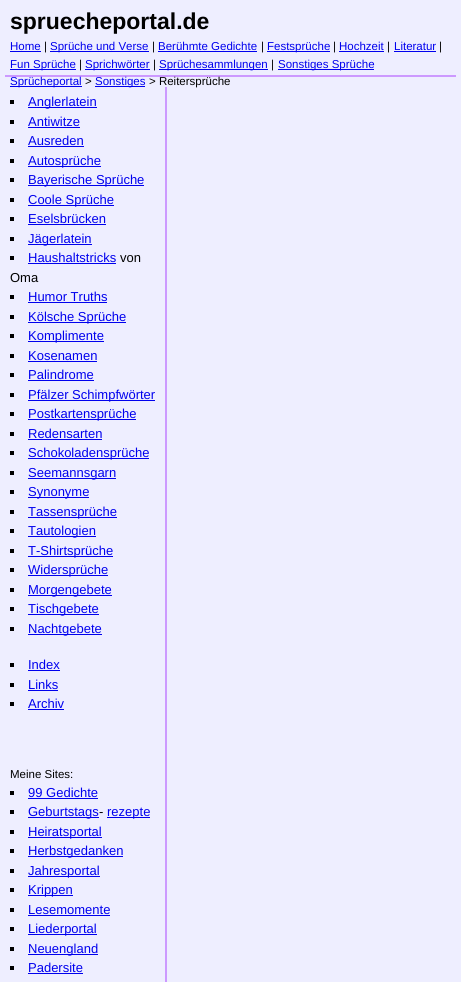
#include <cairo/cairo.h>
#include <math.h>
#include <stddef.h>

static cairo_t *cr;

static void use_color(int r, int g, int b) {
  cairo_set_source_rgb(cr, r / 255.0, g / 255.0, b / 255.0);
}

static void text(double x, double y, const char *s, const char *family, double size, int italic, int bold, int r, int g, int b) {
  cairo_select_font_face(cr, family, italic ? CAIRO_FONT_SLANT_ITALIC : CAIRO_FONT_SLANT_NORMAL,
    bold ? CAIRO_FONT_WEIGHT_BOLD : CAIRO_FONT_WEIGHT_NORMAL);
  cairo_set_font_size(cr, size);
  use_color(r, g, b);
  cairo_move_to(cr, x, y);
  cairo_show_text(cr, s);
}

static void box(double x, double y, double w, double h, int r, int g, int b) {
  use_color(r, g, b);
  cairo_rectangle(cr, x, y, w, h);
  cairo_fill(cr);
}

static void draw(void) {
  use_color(238, 238, 255);
  cairo_paint(cr);
  box(5, 75, 451, 2, 204, 153, 255);
  box(10, 51, 31, 1, 0, 0, 238);
  box(50, 51, 99, 1, 0, 0, 238);
  box(158, 51, 99, 1, 0, 0, 238);
  box(267, 51, 63, 1, 0, 0, 238);
  box(339, 51, 45, 1, 0, 0, 238);
  box(394, 51, 42, 1, 0, 0, 238);
  box(10, 69, 66, 1, 0, 0, 238);
  box(85, 69, 65, 1, 0, 0, 238);
  box(159, 69, 109, 1, 0, 0, 238);
  box(278, 69, 96, 1, 0, 0, 238);
  box(10, 86, 72, 1, 0, 0, 238);
  box(95, 86, 50, 1, 0, 0, 238);
  box(165, 87, 2, 895, 204, 153, 255);
  box(10, 100, 4, 4, 0, 0, 0);
  box(28, 107, 69, 1, 0, 0, 238);
  box(10, 120, 4, 4, 0, 0, 0);
  box(28, 127, 52, 1, 0, 0, 238);
  box(10, 139, 4, 4, 0, 0, 0);
  box(28, 146, 56, 1, 0, 0, 238);
  box(10, 159, 4, 4, 0, 0, 0);
  box(28, 166, 73, 1, 0, 0, 238);
  box(10, 178, 4, 4, 0, 0, 0);
  box(28, 185, 116, 1, 0, 0, 238);
  box(10, 198, 4, 4, 0, 0, 0);
  box(28, 205, 86, 1, 0, 0, 238);
  box(10, 217, 4, 4, 0, 0, 0);
  box(28, 224, 78, 1, 0, 0, 238);
  box(10, 237, 4, 4, 0, 0, 0);
  box(28, 244, 64, 1, 0, 0, 238);
  box(10, 256, 4, 4, 0, 0, 0);
  box(28, 263, 88, 1, 0, 0, 238);
  box(10, 295, 4, 4, 0, 0, 0);
  box(28, 302, 79, 1, 0, 0, 238);
  box(10, 315, 4, 4, 0, 0, 0);
  box(28, 322, 98, 1, 0, 0, 238);
  box(10, 334, 4, 4, 0, 0, 0);
  box(28, 341, 76, 1, 0, 0, 238);
  box(10, 354, 4, 4, 0, 0, 0);
  box(28, 361, 69, 1, 0, 0, 238);
  box(10, 373, 4, 4, 0, 0, 0);
  box(28, 380, 66, 1, 0, 0, 238);
  box(10, 393, 4, 4, 0, 0, 0);
  box(28, 400, 127, 1, 0, 0, 238);
  box(10, 412, 4, 4, 0, 0, 0);
  box(28, 419, 108, 1, 0, 0, 238);
  box(10, 432, 4, 4, 0, 0, 0);
  box(28, 439, 74, 1, 0, 0, 238);
  box(10, 451, 4, 4, 0, 0, 0);
  box(28, 458, 121, 1, 0, 0, 238);
  box(10, 471, 4, 4, 0, 0, 0);
  box(28, 478, 88, 1, 0, 0, 238);
  box(10, 490, 4, 4, 0, 0, 0);
  box(28, 497, 61, 1, 0, 0, 238);
  box(10, 510, 4, 4, 0, 0, 0);
  box(28, 517, 89, 1, 0, 0, 238);
  box(10, 529, 4, 4, 0, 0, 0);
  box(28, 536, 68, 1, 0, 0, 238);
  box(10, 549, 4, 4, 0, 0, 0);
  box(28, 556, 85, 1, 0, 0, 238);
  box(10, 568, 4, 4, 0, 0, 0);
  box(28, 575, 80, 1, 0, 0, 238);
  box(10, 588, 4, 4, 0, 0, 0);
  box(28, 595, 84, 1, 0, 0, 238);
  box(10, 607, 4, 4, 0, 0, 0);
  box(28, 614, 71, 1, 0, 0, 238);
  box(10, 627, 4, 4, 0, 0, 0);
  box(28, 634, 74, 1, 0, 0, 238);
  box(10, 663, 4, 4, 0, 0, 0);
  box(28, 670, 32, 1, 0, 0, 238);
  box(10, 683, 4, 4, 0, 0, 0);
  box(28, 690, 30, 1, 0, 0, 238);
  box(10, 702, 4, 4, 0, 0, 0);
  box(28, 709, 36, 1, 0, 0, 238);
  box(10, 791, 4, 4, 0, 0, 0);
  box(28, 798, 70, 1, 0, 0, 238);
  box(10, 810, 4, 4, 0, 0, 0);
  box(28, 817, 71, 1, 0, 0, 238);
  box(107, 817, 43, 1, 0, 0, 238);
  box(10, 830, 4, 4, 0, 0, 0);
  box(28, 837, 74, 1, 0, 0, 238);
  box(10, 849, 4, 4, 0, 0, 0);
  box(28, 856, 95, 1, 0, 0, 238);
  box(10, 869, 4, 4, 0, 0, 0);
  box(28, 876, 72, 1, 0, 0, 238);
  box(10, 888, 4, 4, 0, 0, 0);
  box(28, 895, 45, 1, 0, 0, 238);
  box(10, 908, 4, 4, 0, 0, 0);
  box(28, 915, 82, 1, 0, 0, 238);
  box(10, 927, 4, 4, 0, 0, 0);
  box(28, 934, 69, 1, 0, 0, 238);
  box(10, 947, 4, 4, 0, 0, 0);
  box(28, 954, 70, 1, 0, 0, 238);
  box(10, 966, 4, 4, 0, 0, 0);
  box(28, 973, 55, 1, 0, 0, 238);
  text(10, 29, "spruecheportal.de", "Liberation Sans", 23, 0, 1, 0, 0, 0);
  text(10, 50, "Home", "Liberation Sans", 11.5, 0, 0, 0, 0, 238);
  text(44, 50, "|", "Liberation Sans", 11.5, 0, 0, 0, 0, 0);
  text(50, 50, "Sprüche und Verse", "Liberation Sans", 11.5, 0, 0, 0, 0, 238);
  text(152, 50, "|", "Liberation Sans", 11.5, 0, 0, 0, 0, 0);
  text(158, 50, "Berühmte Gedichte", "Liberation Sans", 11.5, 0, 0, 0, 0, 238);
  text(261, 50, "|", "Liberation Sans", 11.5, 0, 0, 0, 0, 0);
  text(267, 50, "Festsprüche", "Liberation Sans", 11.5, 0, 0, 0, 0, 238);
  text(333, 50, "|", "Liberation Sans", 11.5, 0, 0, 0, 0, 0);
  text(339, 50, "Hochzeit", "Liberation Sans", 11.5, 0, 0, 0, 0, 238);
  text(387, 50, "|", "Liberation Sans", 11.5, 0, 0, 0, 0, 0);
  text(394, 50, "Literatur", "Liberation Sans", 11.5, 0, 0, 0, 0, 238);
  text(439, 50, "|", "Liberation Sans", 11.5, 0, 0, 0, 0, 0);
  text(10, 68, "Fun Sprüche", "Liberation Sans", 11.5, 0, 0, 0, 0, 238);
  text(79, 68, "|", "Liberation Sans", 11.5, 0, 0, 0, 0, 0);
  text(85, 68, "Sprichwörter", "Liberation Sans", 11.5, 0, 0, 0, 0, 238);
  text(153, 68, "|", "Liberation Sans", 11.5, 0, 0, 0, 0, 0);
  text(159, 68, "Sprüchesammlungen", "Liberation Sans", 11.5, 0, 0, 0, 0, 238);
  text(271, 68, "|", "Liberation Sans", 11.5, 0, 0, 0, 0, 0);
  text(278, 68, "Sonstiges Sprüche", "Liberation Sans", 11.5, 0, 0, 0, 0, 238);
  text(10, 85, "Sprücheportal", "Liberation Sans", 11.5, 0, 0, 0, 0, 238);
  text(85, 85, ">", "Liberation Sans", 11.5, 0, 0, 0, 0, 0);
  text(95, 85, "Sonstiges", "Liberation Sans", 11.5, 0, 0, 0, 0, 238);
  text(149, 85, "> Reitersprüche", "Liberation Sans", 11.5, 0, 0, 0, 0, 0);
  text(28, 106, "Anglerlatein", "Liberation Sans", 13, 0, 0, 0, 0, 238);
  text(28, 126, "Antiwitze", "Liberation Sans", 13, 0, 0, 0, 0, 238);
  text(28, 145, "Ausreden", "Liberation Sans", 13, 0, 0, 0, 0, 238);
  text(28, 165, "Autosprüche", "Liberation Sans", 13, 0, 0, 0, 0, 238);
  text(28, 184, "Bayerische Sprüche", "Liberation Sans", 13, 0, 0, 0, 0, 238);
  text(28, 204, "Coole Sprüche", "Liberation Sans", 13, 0, 0, 0, 0, 238);
  text(28, 223, "Eselsbrücken", "Liberation Sans", 13, 0, 0, 0, 0, 238);
  text(28, 243, "Jägerlatein", "Liberation Sans", 13, 0, 0, 0, 0, 238);
  text(28, 262, "Haushaltstricks", "Liberation Sans", 13, 0, 0, 0, 0, 238);
  text(120, 262, "von", "Liberation Sans", 13, 0, 0, 0, 0, 0);
  text(10, 282, "Oma", "Liberation Sans", 13, 0, 0, 0, 0, 0);
  text(28, 301, "Humor Truths", "Liberation Sans", 13, 0, 0, 0, 0, 238);
  text(28, 321, "Kölsche Sprüche", "Liberation Sans", 13, 0, 0, 0, 0, 238);
  text(28, 340, "Komplimente", "Liberation Sans", 13, 0, 0, 0, 0, 238);
  text(28, 360, "Kosenamen", "Liberation Sans", 13, 0, 0, 0, 0, 238);
  text(28, 379, "Palindrome", "Liberation Sans", 13, 0, 0, 0, 0, 238);
  text(28, 399, "Pfälzer Schimpfwörter", "Liberation Sans", 13, 0, 0, 0, 0, 238);
  text(28, 418, "Postkartensprüche", "Liberation Sans", 13, 0, 0, 0, 0, 238);
  text(28, 438, "Redensarten", "Liberation Sans", 13, 0, 0, 0, 0, 238);
  text(28, 457, "Schokoladensprüche", "Liberation Sans", 13, 0, 0, 0, 0, 238);
  text(28, 477, "Seemannsgarn", "Liberation Sans", 13, 0, 0, 0, 0, 238);
  text(28, 496, "Synonyme", "Liberation Sans", 13, 0, 0, 0, 0, 238);
  text(28, 516, "Tassensprüche", "Liberation Sans", 13, 0, 0, 0, 0, 238);
  text(28, 535, "Tautologien", "Liberation Sans", 13, 0, 0, 0, 0, 238);
  text(28, 555, "T-Shirtsprüche", "Liberation Sans", 13, 0, 0, 0, 0, 238);
  text(28, 574, "Widersprüche", "Liberation Sans", 13, 0, 0, 0, 0, 238);
  text(28, 594, "Morgengebete", "Liberation Sans", 13, 0, 0, 0, 0, 238);
  text(28, 613, "Tischgebete", "Liberation Sans", 13, 0, 0, 0, 0, 238);
  text(28, 633, "Nachtgebete", "Liberation Sans", 13, 0, 0, 0, 0, 238);
  text(28, 669, "Index", "Liberation Sans", 13, 0, 0, 0, 0, 238);
  text(28, 689, "Links", "Liberation Sans", 13, 0, 0, 0, 0, 238);
  text(28, 708, "Archiv", "Liberation Sans", 13, 0, 0, 0, 0, 238);
  text(10, 778, "Meine Sites:", "Liberation Sans", 11.5, 0, 0, 0, 0, 0);
  text(28, 797, "99 Gedichte", "Liberation Sans", 13, 0, 0, 0, 0, 238);
  text(28, 816, "Geburtstags", "Liberation Sans", 13, 0, 0, 0, 0, 238);
  text(99, 816, "-", "Liberation Sans", 13, 0, 0, 0, 0, 0);
  text(107, 816, "rezepte", "Liberation Sans", 13, 0, 0, 0, 0, 238);
  text(28, 836, "Heiratsportal", "Liberation Sans", 13, 0, 0, 0, 0, 238);
  text(28, 855, "Herbstgedanken", "Liberation Sans", 13, 0, 0, 0, 0, 238);
  text(28, 875, "Jahresportal", "Liberation Sans", 13, 0, 0, 0, 0, 238);
  text(28, 894, "Krippen", "Liberation Sans", 13, 0, 0, 0, 0, 238);
  text(28, 914, "Lesemomente", "Liberation Sans", 13, 0, 0, 0, 0, 238);
  text(28, 933, "Liederportal", "Liberation Sans", 13, 0, 0, 0, 0, 238);
  text(28, 953, "Neuengland", "Liberation Sans", 13, 0, 0, 0, 0, 238);
  text(28, 972, "Padersite", "Liberation Sans", 13, 0, 0, 0, 0, 238);
}

int main(void) {
  cairo_surface_t *surface = cairo_image_surface_create(CAIRO_FORMAT_RGB24, 461, 982);
  cr = cairo_create(surface);
  cairo_font_options_t *options = cairo_font_options_create();
  cairo_font_options_set_hint_metrics(options, CAIRO_HINT_METRICS_OFF);
  cairo_font_options_set_hint_style(options, CAIRO_HINT_STYLE_NONE);
  cairo_set_font_options(cr, options);
  cairo_set_miter_limit(cr, 4);
  draw();
  cairo_surface_write_to_png(surface, "out.png");
  cairo_font_options_destroy(options);
  cairo_destroy(cr);
  cairo_surface_destroy(surface);
  return 0;
}
